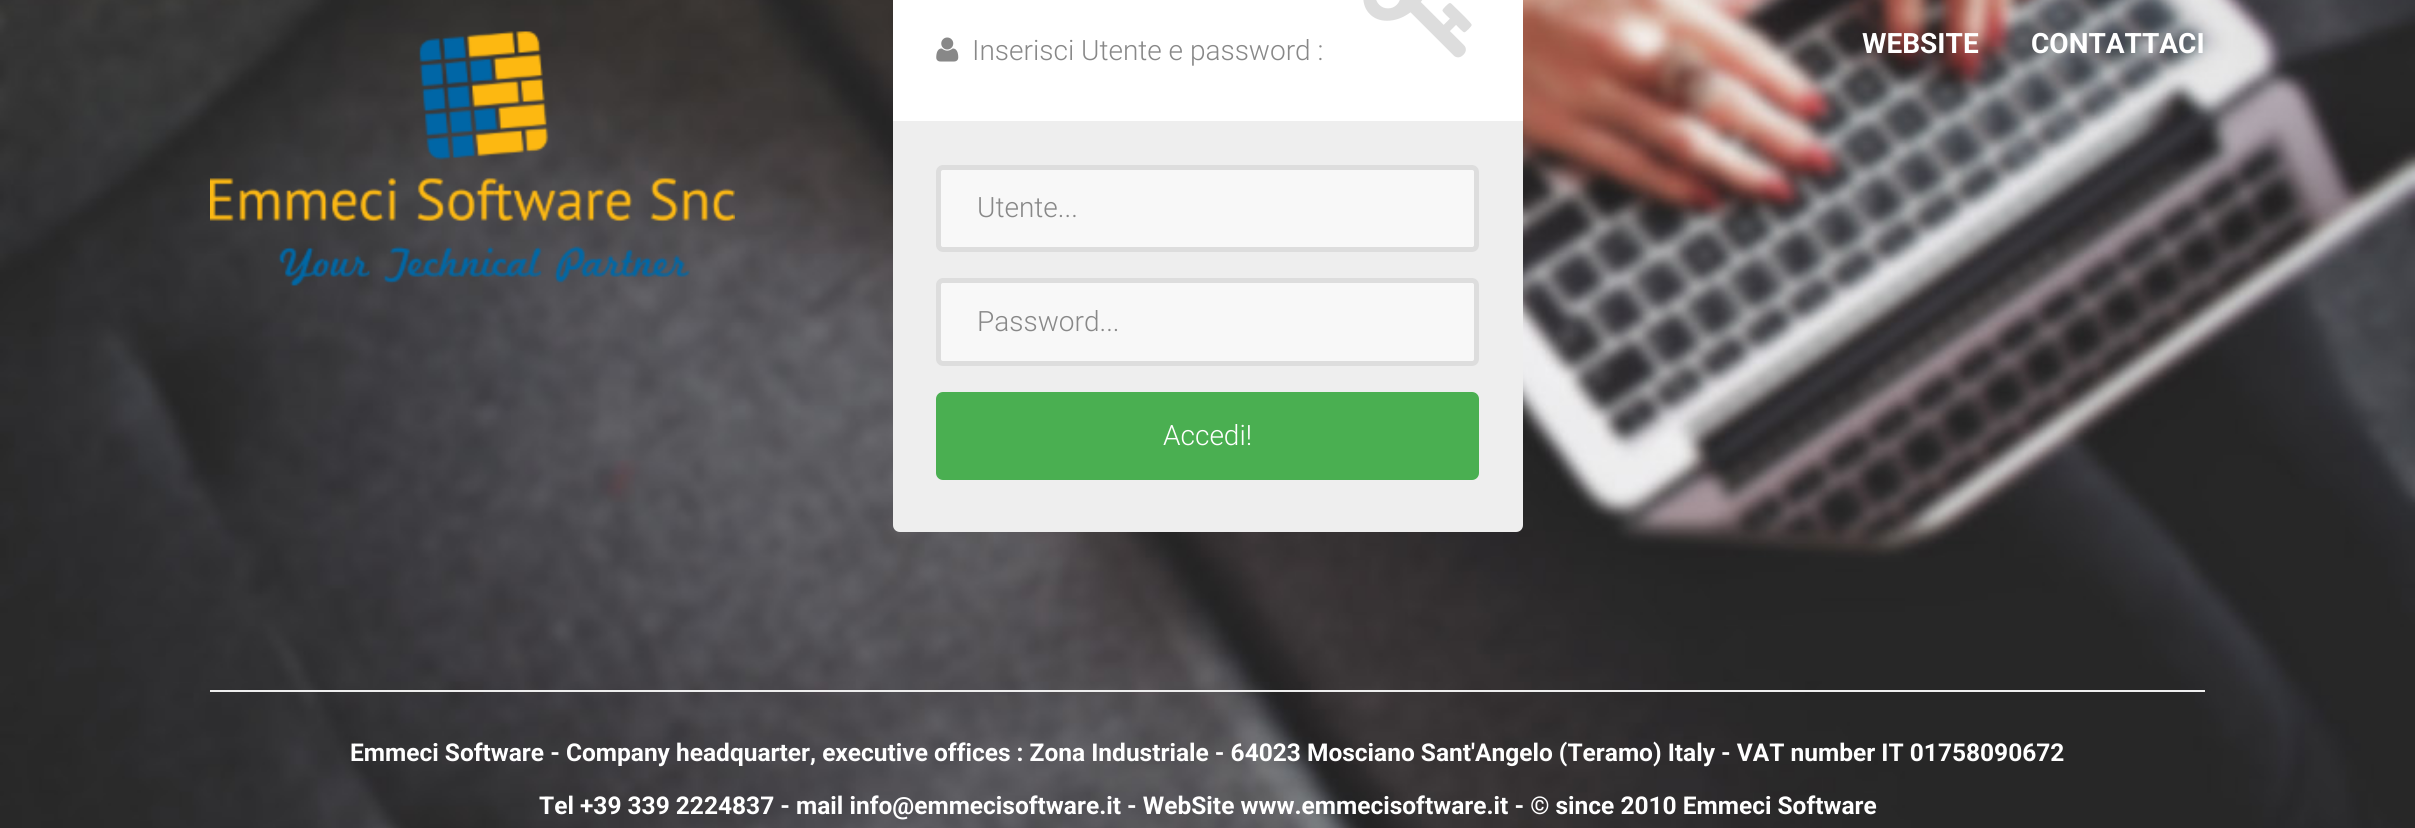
#include <cairo/cairo.h>
#include <math.h>
#include <stddef.h>

static cairo_t *cr;

static void use_color(int r, int g, int b) {
  cairo_set_source_rgb(cr, r / 255.0, g / 255.0, b / 255.0);
}

static void text(double x, double y, const char *s, const char *family, double size, int italic, int bold, int r, int g, int b) {
  cairo_select_font_face(cr, family, italic ? CAIRO_FONT_SLANT_ITALIC : CAIRO_FONT_SLANT_NORMAL,
    bold ? CAIRO_FONT_WEIGHT_BOLD : CAIRO_FONT_WEIGHT_NORMAL);
  cairo_set_font_size(cr, size);
  use_color(r, g, b);
  cairo_move_to(cr, x, y);
  cairo_show_text(cr, s);
}

static void box(double x, double y, double w, double h, int r, int g, int b) {
  use_color(r, g, b);
  cairo_rectangle(cr, x, y, w, h);
  cairo_fill(cr);
}

static void round_rect(double x, double y, double w, double h, double r) {
  cairo_new_sub_path(cr);
  cairo_arc(cr, x + w - r, y + h - r, r, 0, M_PI / 2);
  cairo_arc(cr, x + r, y + h - r, r, M_PI / 2, M_PI);
  cairo_arc(cr, x + r, y + r, r, M_PI, 1.5 * M_PI);
  cairo_arc(cr, x + w - r, y + r, r, 1.5 * M_PI, 2 * M_PI);
  cairo_close_path(cr);
}

static void picture(const char *path, double x, double y, double w, double h) {
  cairo_surface_t *image = cairo_image_surface_create_from_png(path);
  cairo_save(cr);
  cairo_set_source_surface(cr, image, x, y);
  cairo_rectangle(cr, x, y, w, h);
  cairo_fill(cr);
  cairo_restore(cr);
  cairo_surface_destroy(image);
}

static void draw(void) {
  use_color(255, 255, 255);
  cairo_paint(cr);
  picture("img_01.png", 0, 0, 2415, 828);
  box(893, 0, 630, 121, 255, 255, 255);
  picture("img_02.png", 936, 37, 23, 25);
  picture("img_03.png", 1363, 0, 109, 58);
  use_color(238, 238, 238);
  cairo_new_path(cr);
  cairo_move_to(cr, 893, 121);
  cairo_line_to(cr, 1523, 121);
  cairo_line_to(cr, 1523, 525);
  cairo_curve_to(cr, 1523, 529, 1520, 532, 1516, 532);
  cairo_line_to(cr, 900, 532);
  cairo_curve_to(cr, 896, 532, 893, 529, 893, 525);
  cairo_close_path(cr);
  cairo_fill(cr);
  use_color(248, 248, 248);
  round_rect(938.5, 167.5, 538, 82, 4.5);
  cairo_fill_preserve(cr);
  use_color(221, 221, 221);
  cairo_set_line_width(cr, 5);
  cairo_stroke(cr);
  use_color(248, 248, 248);
  round_rect(938.5, 280.5, 538, 83, 4.5);
  cairo_fill_preserve(cr);
  use_color(221, 221, 221);
  cairo_stroke(cr);
  use_color(74, 175, 81);
  round_rect(936, 392, 543, 88, 7);
  cairo_fill(cr);
  picture("img_04.png", 210, 31, 525, 255);
  box(210, 690, 1995, 2, 238, 238, 238);
  text(972, 60, "Inserisci Utente e password :", "Roboto Light", 28, 0, 0, 136, 136, 136);
  text(977, 217, "Utente...", "Roboto Light", 28, 0, 0, 136, 136, 136);
  text(977, 331, "Password...", "Roboto Light", 28, 0, 0, 136, 136, 136);
  text(1163, 445, "Accedi!", "Roboto Light", 28, 0, 0, 255, 255, 255);
  text(1862, 53, "WEBSITE", "Roboto", 28, 0, 1, 255, 255, 255);
  text(2031, 53, "CONTATTACI", "Roboto", 28, 0, 1, 255, 255, 255);
  text(350, 761, "Emmeci Software - Company headquarter, executive offices : Zona Industriale - 64023 Mosciano Sant'Angelo (Teramo) Italy - VAT number IT 01758090672", "Roboto", 24.5, 0, 1, 255, 255, 255);
  text(539, 814, "Tel +39 339 2224837 - mail info@emmecisoftware.it - WebSite www.emmecisoftware.it - © since 2010 Emmeci Software", "Roboto", 24.5, 0, 1, 255, 255, 255);
}

int main(void) {
  cairo_surface_t *surface = cairo_image_surface_create(CAIRO_FORMAT_RGB24, 2415, 828);
  cr = cairo_create(surface);
  cairo_font_options_t *options = cairo_font_options_create();
  cairo_font_options_set_hint_metrics(options, CAIRO_HINT_METRICS_OFF);
  cairo_font_options_set_hint_style(options, CAIRO_HINT_STYLE_NONE);
  cairo_set_font_options(cr, options);
  cairo_set_miter_limit(cr, 4);
  draw();
  cairo_surface_write_to_png(surface, "out.png");
  cairo_font_options_destroy(options);
  cairo_destroy(cr);
  cairo_surface_destroy(surface);
  return 0;
}
